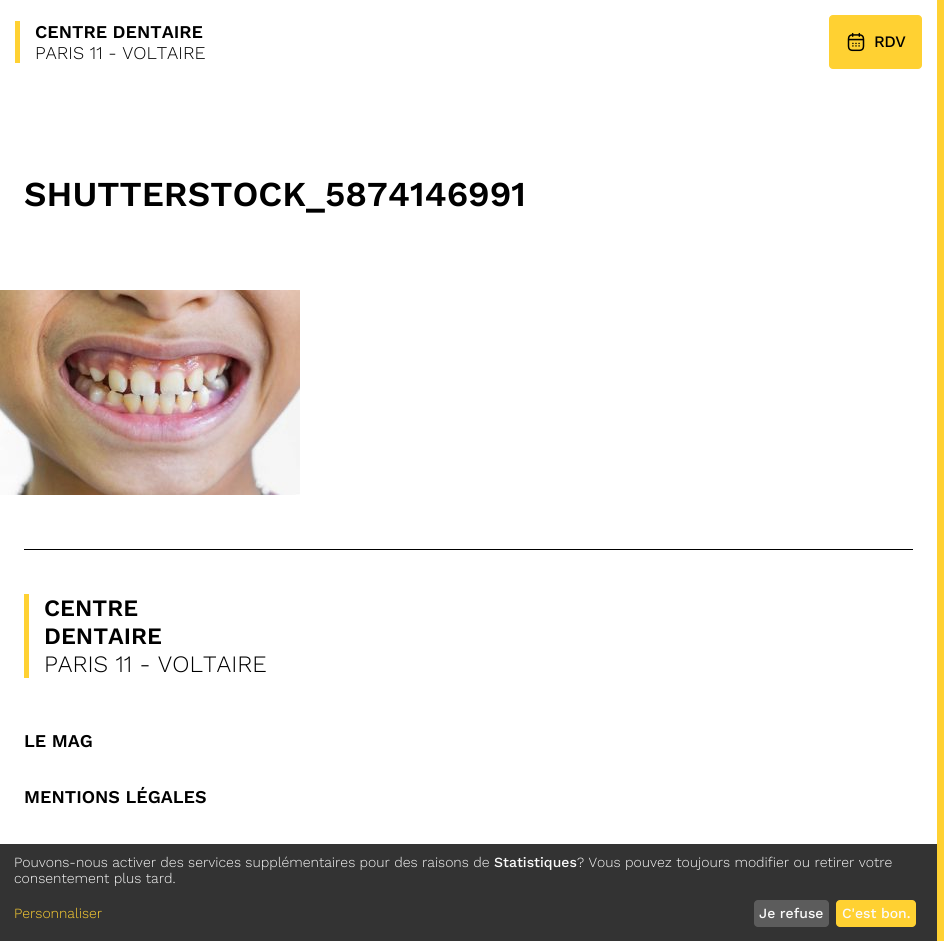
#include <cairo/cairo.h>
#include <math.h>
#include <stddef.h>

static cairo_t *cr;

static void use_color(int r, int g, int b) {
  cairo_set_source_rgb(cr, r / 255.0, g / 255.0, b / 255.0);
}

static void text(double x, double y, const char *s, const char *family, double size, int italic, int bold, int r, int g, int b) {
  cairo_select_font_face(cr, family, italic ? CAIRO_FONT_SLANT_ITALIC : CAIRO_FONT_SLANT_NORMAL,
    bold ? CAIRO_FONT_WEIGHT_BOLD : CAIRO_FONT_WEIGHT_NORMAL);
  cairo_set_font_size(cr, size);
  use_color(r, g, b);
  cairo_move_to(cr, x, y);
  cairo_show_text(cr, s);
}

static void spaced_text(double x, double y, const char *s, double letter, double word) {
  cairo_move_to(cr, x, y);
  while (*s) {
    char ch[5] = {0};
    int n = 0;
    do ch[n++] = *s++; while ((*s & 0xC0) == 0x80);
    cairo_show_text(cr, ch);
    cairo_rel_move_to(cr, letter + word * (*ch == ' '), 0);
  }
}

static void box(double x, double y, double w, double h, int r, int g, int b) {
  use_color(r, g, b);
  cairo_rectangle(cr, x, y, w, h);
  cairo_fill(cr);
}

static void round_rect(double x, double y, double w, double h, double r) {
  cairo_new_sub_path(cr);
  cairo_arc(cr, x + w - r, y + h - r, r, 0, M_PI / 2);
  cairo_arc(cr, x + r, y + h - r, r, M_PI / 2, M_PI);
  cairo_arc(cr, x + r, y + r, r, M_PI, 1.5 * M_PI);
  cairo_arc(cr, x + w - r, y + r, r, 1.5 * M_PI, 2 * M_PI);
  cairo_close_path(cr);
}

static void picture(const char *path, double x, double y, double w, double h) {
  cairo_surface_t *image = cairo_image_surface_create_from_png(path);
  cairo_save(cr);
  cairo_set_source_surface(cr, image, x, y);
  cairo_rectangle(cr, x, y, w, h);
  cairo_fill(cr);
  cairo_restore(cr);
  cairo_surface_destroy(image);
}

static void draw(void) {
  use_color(255, 255, 255);
  cairo_paint(cr);
  box(15, 21, 5, 42, 255, 209, 50);
  round_rect(829.5, 15.5, 92, 53, 3.5);
  cairo_fill_preserve(cr);
  cairo_set_line_width(cr, 1);
  cairo_stroke(cr);
  picture("img_01.png", 847, 32, 18, 20);
  box(937, 0, 7, 941, 255, 209, 50);
  picture("img_02.png", 0, 290, 300, 205);
  box(24, 549, 889, 1, 0, 0, 0);
  box(24, 594, 5, 84, 255, 209, 50);
  box(0, 844, 937, 97, 51, 51, 51);
  use_color(92, 92, 92);
  round_rect(754, 900, 75, 27, 4);
  cairo_fill(cr);
  use_color(255, 209, 50);
  round_rect(836, 900, 80, 27, 4);
  cairo_fill(cr);
  text(35, 38, "CENTRE DENTAIRE", "Work Sans SemiBold", 18, 0, 0, 0, 0, 0);
  text(35, 59, "PARIS 11 - VOLTAIRE", "Work Sans Light", 18, 0, 0, 0, 0, 0);
  cairo_select_font_face(cr, "Work Sans Medium", CAIRO_FONT_SLANT_NORMAL, CAIRO_FONT_WEIGHT_NORMAL);
  cairo_set_font_size(cr, 16);
  spaced_text(874, 47, "RDV", -0.5, 0);
  text(24, 206, "SHUTTERSTOCK_5874146991", "Work Sans SemiBold", 35, 0, 0, 0, 0, 0);
  text(44, 616, "CENTRE", "Work Sans SemiBold", 23.5, 0, 0, 0, 0, 0);
  text(44, 644, "DENTAIRE", "Work Sans SemiBold", 23.5, 0, 0, 0, 0, 0);
  text(44, 672, "PARIS 11 - VOLTAIRE", "Work Sans Light", 23.5, 0, 0, 0, 0, 0);
  text(24, 747, "LE MAG", "Work Sans SemiBold", 18, 0, 0, 0, 0, 0);
  text(24, 803, "MENTIONS LÉGALES", "Work Sans SemiBold", 18, 0, 0, 0, 0, 0);
  text(14, 867, "Pouvons-nous activer des services supplémentaires pour des raisons de", "Work Sans Light", 14, 0, 0, 250, 250, 250);
  text(494, 867, "Statistiques", "Work Sans Medium", 14, 0, 0, 250, 250, 250);
  text(577, 867, "? Vous pouvez toujours modifier ou retirer votre", "Work Sans Light", 14, 0, 0, 250, 250, 250);
  text(14, 883, "consentement plus tard.", "Work Sans Light", 14, 0, 0, 250, 250, 250);
  text(14, 918, "Personnaliser", "Work Sans Light", 14, 0, 0, 255, 209, 50);
  text(759, 918, "Je refuse", "Work Sans Medium", 14, 0, 0, 250, 250, 250);
  text(842, 918, "C'est bon.", "Work Sans Medium", 14, 0, 0, 250, 250, 250);
}

int main(void) {
  cairo_surface_t *surface = cairo_image_surface_create(CAIRO_FORMAT_RGB24, 944, 941);
  cr = cairo_create(surface);
  cairo_font_options_t *options = cairo_font_options_create();
  cairo_font_options_set_hint_metrics(options, CAIRO_HINT_METRICS_OFF);
  cairo_font_options_set_hint_style(options, CAIRO_HINT_STYLE_NONE);
  cairo_set_font_options(cr, options);
  cairo_set_miter_limit(cr, 4);
  draw();
  cairo_surface_write_to_png(surface, "out.png");
  cairo_font_options_destroy(options);
  cairo_destroy(cr);
  cairo_surface_destroy(surface);
  return 0;
}
